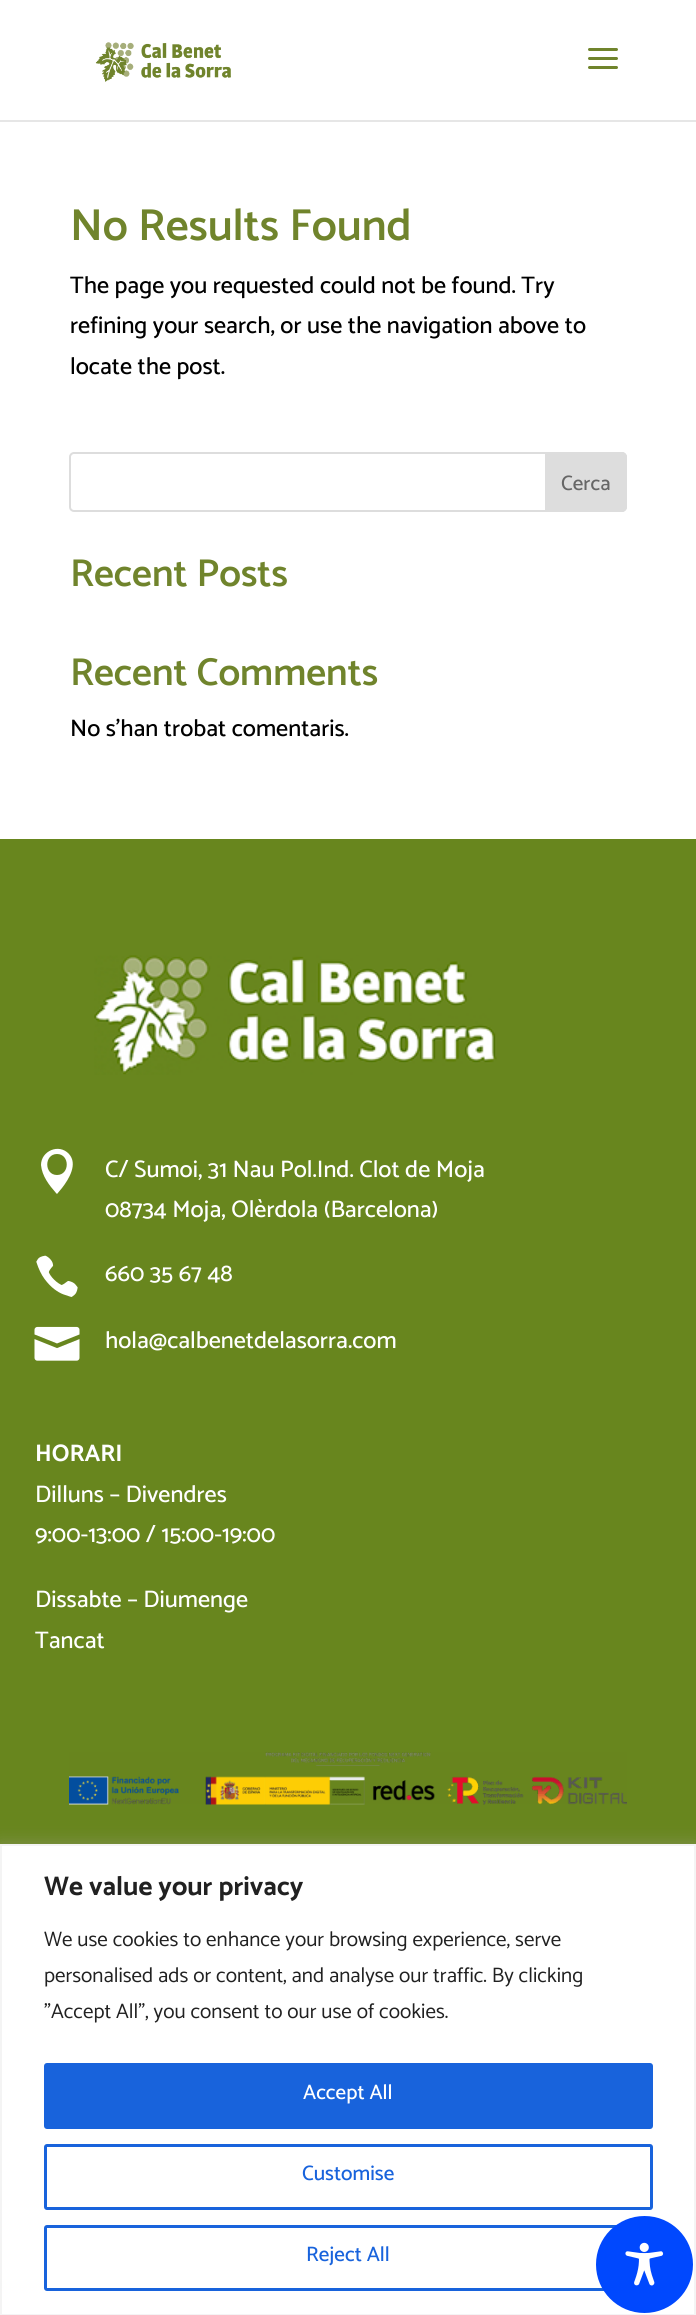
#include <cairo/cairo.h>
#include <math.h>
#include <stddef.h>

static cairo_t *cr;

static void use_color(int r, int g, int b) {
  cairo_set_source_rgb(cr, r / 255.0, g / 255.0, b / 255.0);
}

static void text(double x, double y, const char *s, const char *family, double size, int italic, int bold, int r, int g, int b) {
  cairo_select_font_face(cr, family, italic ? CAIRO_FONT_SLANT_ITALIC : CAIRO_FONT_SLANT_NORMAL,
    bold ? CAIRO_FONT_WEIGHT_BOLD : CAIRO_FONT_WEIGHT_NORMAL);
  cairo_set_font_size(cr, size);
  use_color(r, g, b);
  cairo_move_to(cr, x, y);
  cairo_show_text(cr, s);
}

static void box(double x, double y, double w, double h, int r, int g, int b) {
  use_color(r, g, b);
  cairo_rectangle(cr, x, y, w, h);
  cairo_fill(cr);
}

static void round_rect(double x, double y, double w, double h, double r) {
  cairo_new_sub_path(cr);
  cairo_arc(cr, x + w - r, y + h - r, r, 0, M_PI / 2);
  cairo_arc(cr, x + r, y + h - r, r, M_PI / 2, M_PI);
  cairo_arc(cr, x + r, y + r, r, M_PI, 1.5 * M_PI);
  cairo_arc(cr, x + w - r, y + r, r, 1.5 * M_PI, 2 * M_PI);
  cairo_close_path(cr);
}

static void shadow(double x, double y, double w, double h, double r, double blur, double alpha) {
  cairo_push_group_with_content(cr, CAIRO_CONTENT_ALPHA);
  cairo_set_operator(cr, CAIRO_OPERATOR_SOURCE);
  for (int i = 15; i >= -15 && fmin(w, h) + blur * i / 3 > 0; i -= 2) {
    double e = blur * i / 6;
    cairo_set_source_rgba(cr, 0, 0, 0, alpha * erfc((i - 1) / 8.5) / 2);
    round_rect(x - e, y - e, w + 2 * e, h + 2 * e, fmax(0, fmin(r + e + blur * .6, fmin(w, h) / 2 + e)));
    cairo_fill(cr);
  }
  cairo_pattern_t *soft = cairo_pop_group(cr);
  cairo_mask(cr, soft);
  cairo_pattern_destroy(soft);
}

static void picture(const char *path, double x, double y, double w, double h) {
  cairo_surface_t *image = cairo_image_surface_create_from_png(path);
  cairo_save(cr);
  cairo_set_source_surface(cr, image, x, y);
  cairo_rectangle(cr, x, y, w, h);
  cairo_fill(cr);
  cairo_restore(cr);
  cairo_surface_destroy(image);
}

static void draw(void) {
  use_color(255, 255, 255);
  cairo_paint(cr);
  box(0, 120, 696, 2, 230, 230, 230);
  picture("img_01.png", 95, 42, 136, 40);
  picture("img_02.png", 588, 48, 30, 21);
  round_rect(70, 453, 556, 58, 4);
  use_color(221, 221, 221);
  cairo_stroke(cr);
  cairo_new_path(cr);
  cairo_move_to(cr, 546, 453);
  cairo_line_to(cr, 622, 453);
  cairo_curve_to(cr, 624, 453, 626, 455, 626, 457);
  cairo_line_to(cr, 626, 507);
  cairo_curve_to(cr, 626, 509, 624, 511, 622, 511);
  cairo_line_to(cr, 546, 511);
  cairo_close_path(cr);
  cairo_fill_preserve(cr);
  cairo_stroke(cr);
  box(0, 839, 696, 1005, 104, 134, 30);
  picture("img_03.png", 94, 955, 403, 120);
  use_color(255, 255, 255);
  cairo_new_path(cr);
  cairo_move_to(cr, 56, 1193);
  cairo_line_to(cr, 57, 1194);
  cairo_line_to(cr, 62, 1188);
  cairo_curve_to(cr, 69, 1179, 78, 1164, 69, 1154);
  cairo_curve_to(cr, 59, 1143, 41, 1151, 41, 1165);
  cairo_curve_to(cr, 42, 1176, 49, 1185, 56, 1193);
  cairo_close_path(cr);
  cairo_move_to(cr, 57, 1154);
  cairo_curve_to(cr, 70, 1154, 70, 1175, 57, 1175);
  cairo_curve_to(cr, 44, 1175, 44, 1154, 57, 1154);
  cairo_close_path(cr);
  cairo_fill(cr);
  picture("img_04.png", 36, 1255, 42, 42);
  picture("img_05.png", 34, 1326, 46, 35);
  picture("img_06.png", 69, 1752, 558, 53);
  use_color(172, 171, 171);
  shadow(0, 1842, 696, 473, 0, 7.5, 0.3);
  use_color(255, 255, 255);
  cairo_rectangle(cr, 1, 1845, 694, 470);
  cairo_fill_preserve(cr);
  use_color(244, 244, 244);
  cairo_stroke(cr);
  use_color(24, 99, 220);
  round_rect(45.5, 2064.5, 606, 63, 1.5);
  cairo_fill_preserve(cr);
  cairo_set_line_width(cr, 3);
  cairo_stroke(cr);
  round_rect(45.5, 2145.5, 606, 63, 1.5);
  cairo_stroke(cr);
  round_rect(45.5, 2226.5, 606, 63, 1.5);
  cairo_stroke(cr);
  use_color(0, 72, 254);
  cairo_arc(cr, 644.5, 2264.5, 48.5, 0, 2 * M_PI);
  cairo_fill(cr);
  picture("img_07.png", 625, 2242, 39, 44);
  text(70, 240, "No Results Found", "Catamaran SemiBold", 45, 0, 0, 112, 132, 44);
  text(70, 293, "The page you requested could not be found. Try", "Catamaran Medium", 24, 0, 0, 0, 0, 0);
  text(70, 333, "refining your search, or use the navigation above to", "Catamaran Medium", 24, 0, 0, 0, 0, 0);
  text(70, 374, "locate the post.", "Catamaran Medium", 24, 0, 0, 0, 0, 0);
  text(561, 490, "Cerca", "Catamaran Medium", 21, 0, 0, 102, 102, 102);
  text(70, 586, "Recent Posts", "Catamaran SemiBold", 39, 0, 0, 112, 132, 44);
  text(70, 685, "Recent Comments", "Catamaran SemiBold", 39, 0, 0, 112, 132, 44);
  text(70, 736, "No s'han trobat comentaris.", "Catamaran Medium", 24, 0, 0, 0, 0, 0);
  text(105, 1177, "C/ Sumoi, 31 Nau Pol.Ind. Clot de Moja", "Catamaran Medium", 24, 0, 0, 255, 255, 255);
  text(105, 1217, "08734 Moja, Olèrdola (Barcelona)", "Catamaran Medium", 24, 0, 0, 255, 255, 255);
  text(105, 1281, "660 35 67 48", "Catamaran Medium", 24, 0, 0, 255, 255, 255);
  text(105, 1348, "hola@calbenetdelasorra.com", "Catamaran Medium", 24, 0, 0, 255, 255, 255);
  text(35, 1461, "HORARI", "Catamaran", 24, 0, 1, 255, 255, 255);
  text(35, 1502, "Dilluns – Divendres", "Catamaran Medium", 24, 0, 0, 255, 255, 255);
  text(35, 1542, "9:00-13:00 / 15:00-19:00", "Catamaran Medium", 24, 0, 0, 255, 255, 255);
  text(35, 1607, "Dissabte – Diumenge", "Catamaran Medium", 24, 0, 0, 255, 255, 255);
  text(35, 1648, "Tancat", "Catamaran Medium", 24, 0, 0, 255, 255, 255);
  text(44, 1895, "We value your privacy", "Catamaran", 27, 0, 1, 33, 33, 33);
  text(44, 1946, "We use cookies to enhance your browsing experience, serve", "Catamaran", 21, 0, 0, 33, 33, 33);
  text(44, 1982, "personalised ads or content, and analyse our traffic. By clicking", "Catamaran", 21, 0, 0, 33, 33, 33);
  text(44, 2018, "\"Accept All\", you consent to our use of cookies.", "Catamaran", 21, 0, 0, 33, 33, 33);
  text(303, 2099, "Accept All", "Catamaran Medium", 21, 0, 0, 255, 255, 255);
  text(302, 2180, "Customise", "Catamaran Medium", 21, 0, 0, 24, 99, 220);
  text(306, 2261, "Reject All", "Catamaran Medium", 21, 0, 0, 24, 99, 220);
}

int main(void) {
  cairo_surface_t *surface = cairo_image_surface_create(CAIRO_FORMAT_RGB24, 696, 2315);
  cr = cairo_create(surface);
  cairo_font_options_t *options = cairo_font_options_create();
  cairo_font_options_set_hint_metrics(options, CAIRO_HINT_METRICS_OFF);
  cairo_font_options_set_hint_style(options, CAIRO_HINT_STYLE_NONE);
  cairo_set_font_options(cr, options);
  cairo_set_miter_limit(cr, 4);
  draw();
  cairo_surface_write_to_png(surface, "out.png");
  cairo_font_options_destroy(options);
  cairo_destroy(cr);
  cairo_surface_destroy(surface);
  return 0;
}
